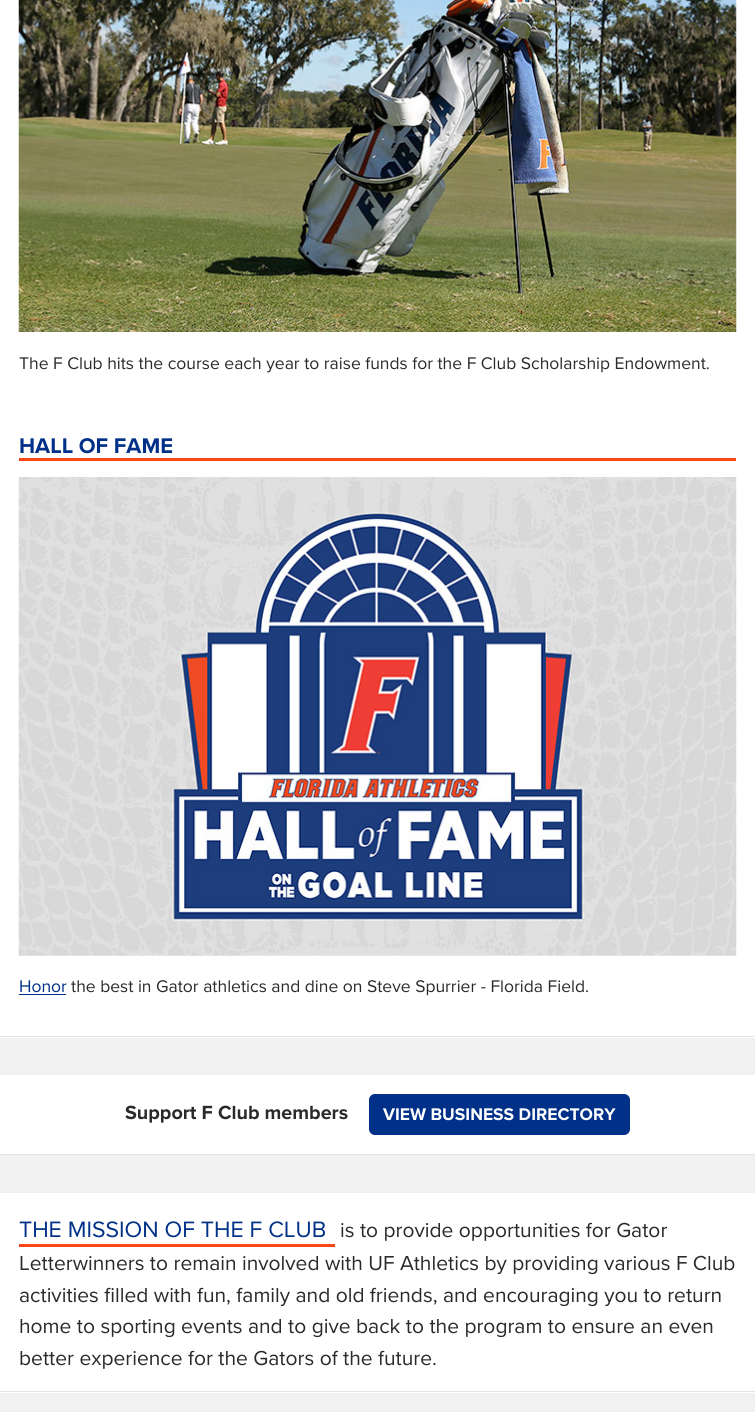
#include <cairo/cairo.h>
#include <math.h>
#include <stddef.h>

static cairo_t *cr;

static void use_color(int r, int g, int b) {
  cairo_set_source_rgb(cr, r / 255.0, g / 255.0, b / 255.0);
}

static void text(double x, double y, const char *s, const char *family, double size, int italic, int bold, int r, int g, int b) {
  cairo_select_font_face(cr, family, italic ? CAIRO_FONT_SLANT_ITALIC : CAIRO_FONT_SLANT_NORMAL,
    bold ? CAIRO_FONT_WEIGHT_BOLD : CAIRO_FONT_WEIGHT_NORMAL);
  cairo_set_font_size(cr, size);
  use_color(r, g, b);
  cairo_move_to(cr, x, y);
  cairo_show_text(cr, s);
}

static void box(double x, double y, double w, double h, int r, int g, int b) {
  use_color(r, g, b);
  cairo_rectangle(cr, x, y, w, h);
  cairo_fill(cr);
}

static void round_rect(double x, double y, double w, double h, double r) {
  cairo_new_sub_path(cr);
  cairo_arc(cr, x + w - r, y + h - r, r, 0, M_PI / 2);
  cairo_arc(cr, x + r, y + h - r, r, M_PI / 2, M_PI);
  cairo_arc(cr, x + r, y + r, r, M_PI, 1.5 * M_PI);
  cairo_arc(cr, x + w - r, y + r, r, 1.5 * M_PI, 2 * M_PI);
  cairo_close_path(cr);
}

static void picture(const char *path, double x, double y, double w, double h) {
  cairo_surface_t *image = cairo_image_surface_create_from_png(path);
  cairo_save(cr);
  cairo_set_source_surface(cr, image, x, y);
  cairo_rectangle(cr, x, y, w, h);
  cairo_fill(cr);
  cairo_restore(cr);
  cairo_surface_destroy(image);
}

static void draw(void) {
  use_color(241, 241, 241);
  cairo_paint(cr);
  box(0, 0, 755, 1038, 255, 255, 255);
  box(0, 1036, 755, 1, 226, 226, 226);
  picture("img_01.png", 18, 0, 719, 332);
  box(19, 458, 717, 3, 250, 70, 22);
  picture("img_02.png", 18, 477, 719, 479);
  box(19, 994, 47, 1, 0, 48, 135);
  box(0, 1075, 755, 79, 255, 255, 255);
  box(0, 1154, 755, 1, 226, 226, 226);
  use_color(0, 48, 135);
  round_rect(369.5, 1094.5, 260, 40, 5.5);
  cairo_fill_preserve(cr);
  cairo_set_line_width(cr, 1);
  cairo_stroke(cr);
  box(0, 1193, 755, 200, 255, 255, 255);
  box(0, 1391, 755, 1, 226, 226, 226);
  box(19, 1244, 316, 3, 250, 70, 22);
  text(19, 369, "The F Club hits the course each year to raise funds for the F Club Scholarship Endowment.", "Proxima Nova", 17.5, 0, 0, 44, 42, 41);
  text(19, 453, "HALL OF FAME", "Proxima Nova", 22, 0, 1, 0, 48, 135);
  text(19, 992, "Honor", "Proxima Nova", 17.5, 0, 0, 0, 48, 135);
  text(71, 992, "the best in Gator athletics and dine on Steve Spurrier - Florida Field.", "Proxima Nova", 17.5, 0, 0, 44, 42, 41);
  text(125, 1119, "Support F Club members", "Proxima Nova", 19.75, 0, 1, 44, 42, 41);
  text(383, 1120, "VIEW BUSINESS DIRECTORY", "Proxima Nova", 17.5, 0, 1, 255, 255, 255);
  text(19, 1237, "THE MISSION OF THE F CLUB", "Proxima Nova", 23.1, 0, 0, 0, 48, 135);
  text(340, 1237, "is to provide opportunities for Gator", "Proxima Nova", 21, 0, 0, 44, 42, 41);
  text(19, 1270, "Letterwinners to remain involved with UF Athletics by providing various F Club", "Proxima Nova", 21, 0, 0, 44, 42, 41);
  text(19, 1302, "activities filled with fun, family and old friends, and encouraging you to return", "Proxima Nova", 21, 0, 0, 44, 42, 41);
  text(19, 1333, "home to sporting events and to give back to the program to ensure an even", "Proxima Nova", 21, 0, 0, 44, 42, 41);
  text(19, 1365, "better experience for the Gators of the future.", "Proxima Nova", 21, 0, 0, 44, 42, 41);
}

int main(void) {
  cairo_surface_t *surface = cairo_image_surface_create(CAIRO_FORMAT_RGB24, 755, 1412);
  cr = cairo_create(surface);
  cairo_font_options_t *options = cairo_font_options_create();
  cairo_font_options_set_hint_metrics(options, CAIRO_HINT_METRICS_OFF);
  cairo_font_options_set_hint_style(options, CAIRO_HINT_STYLE_NONE);
  cairo_set_font_options(cr, options);
  cairo_set_miter_limit(cr, 4);
  draw();
  cairo_surface_write_to_png(surface, "out.png");
  cairo_font_options_destroy(options);
  cairo_destroy(cr);
  cairo_surface_destroy(surface);
  return 0;
}
